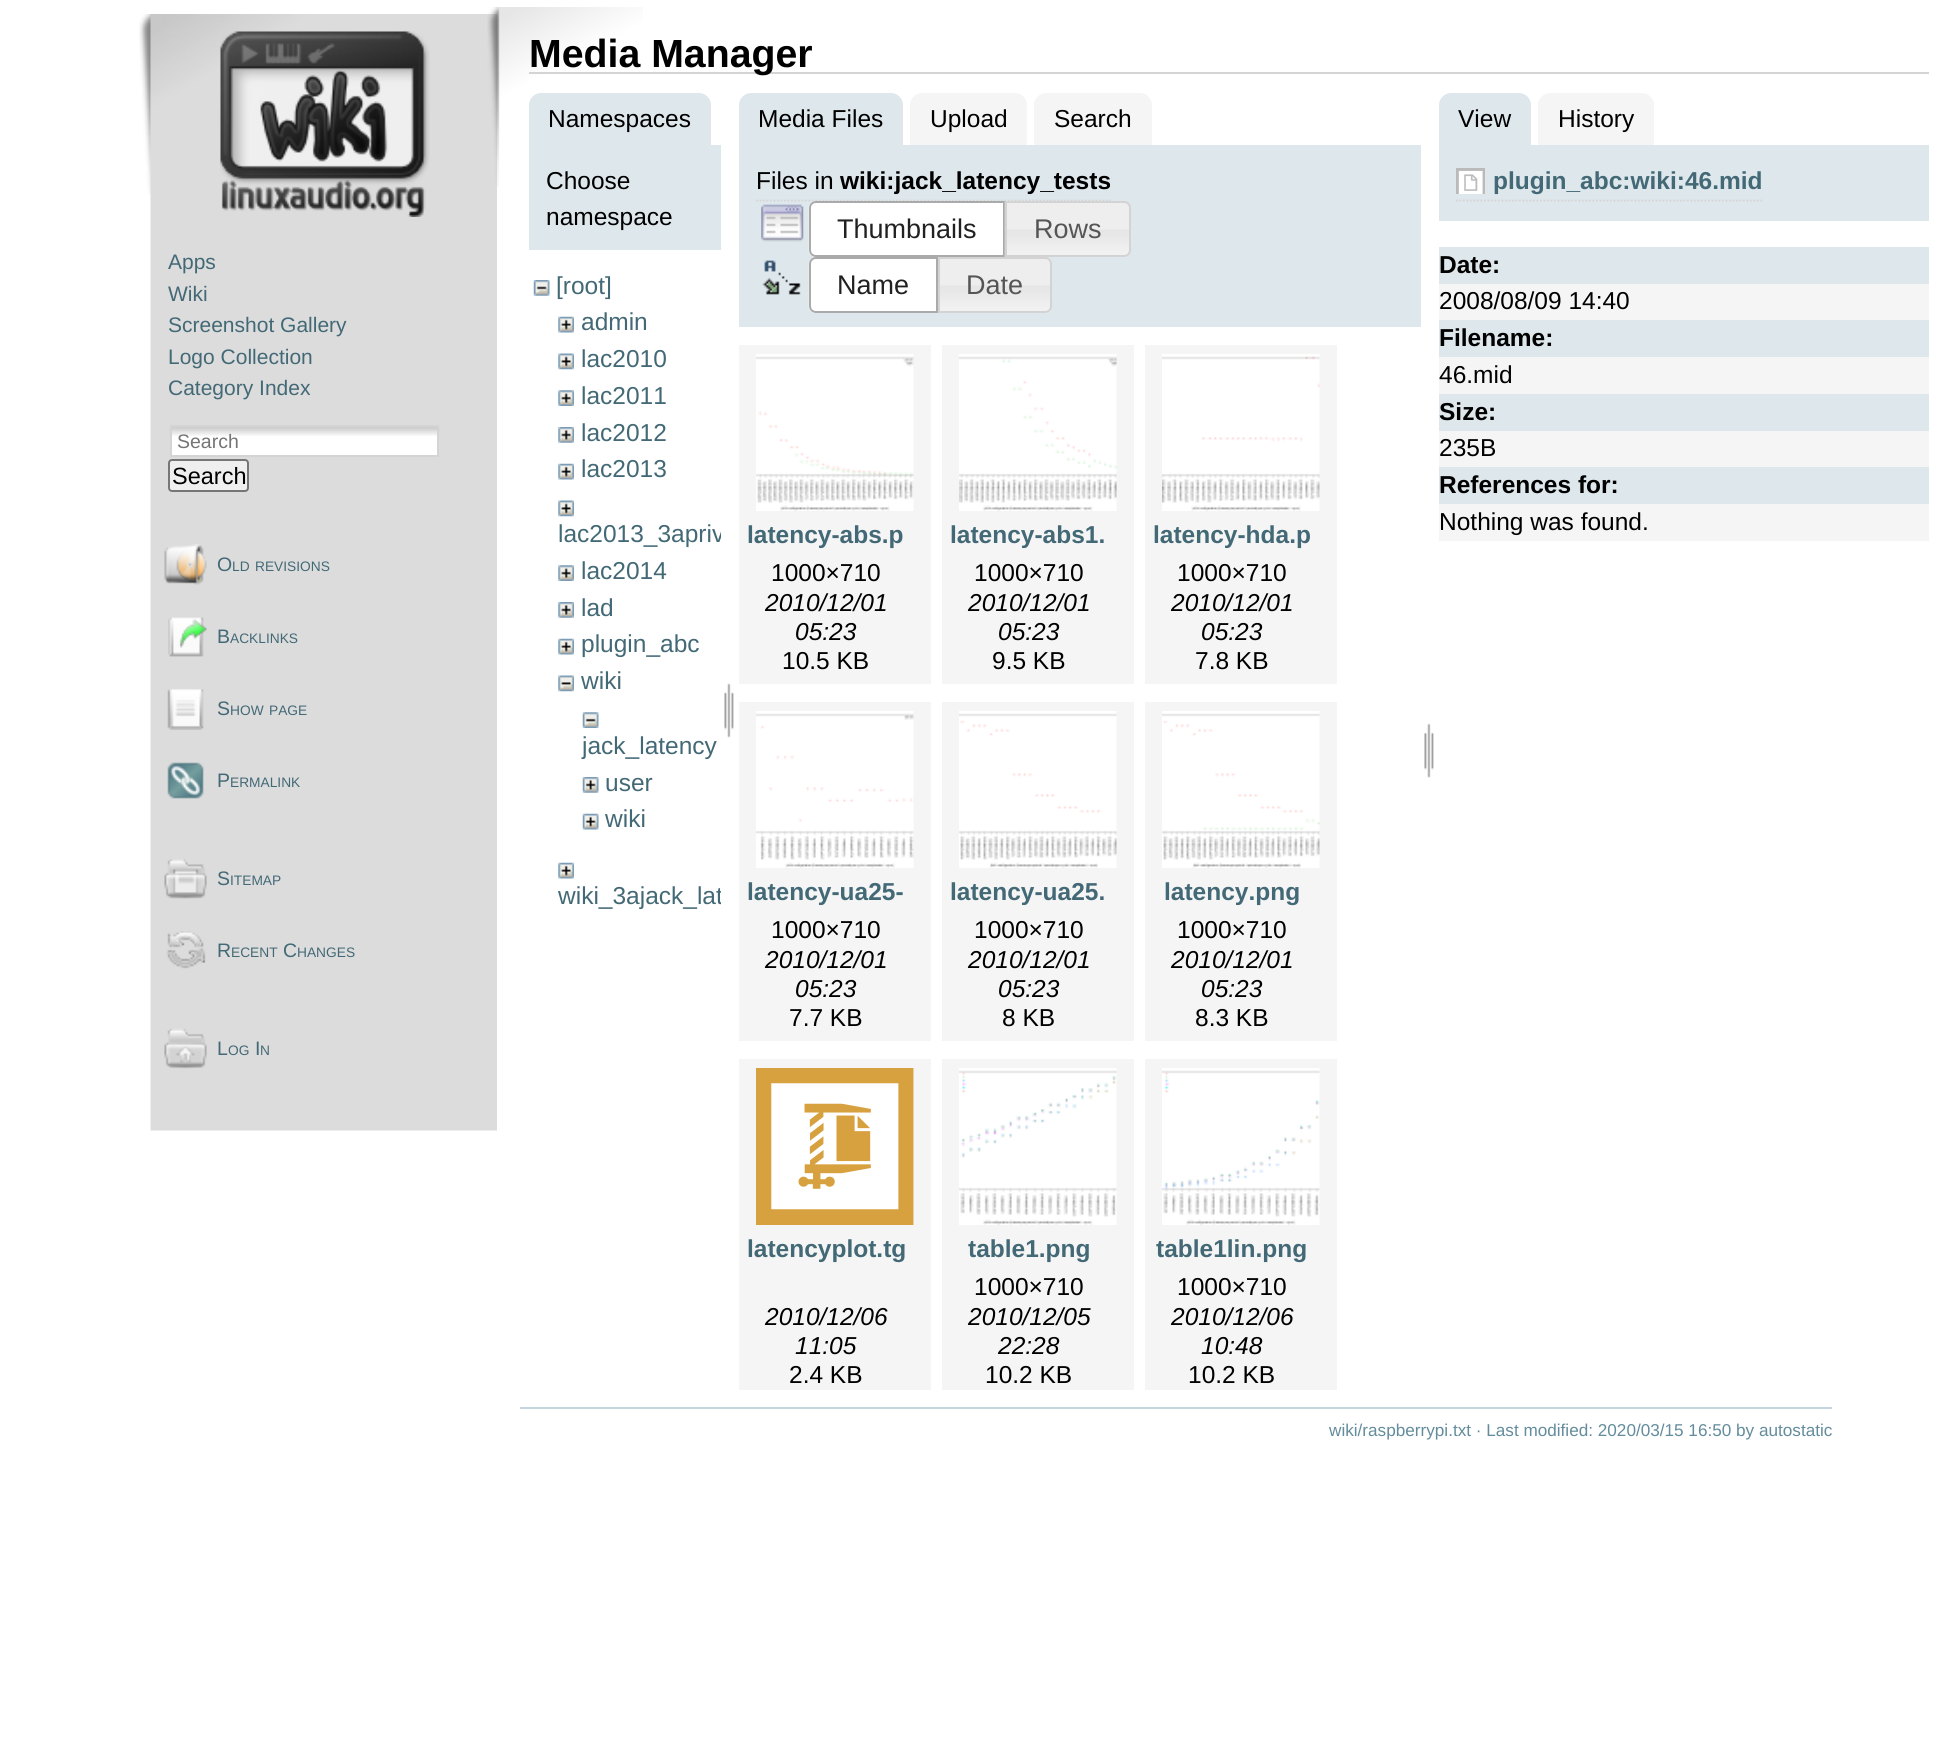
#include <cairo/cairo.h>
#include <math.h>
#include <stddef.h>

static cairo_t *cr;

static void use_color(int r, int g, int b) {
  cairo_set_source_rgb(cr, r / 255.0, g / 255.0, b / 255.0);
}

static void text(double x, double y, const char *s, const char *family, double size, int italic, int bold, int r, int g, int b) {
  cairo_select_font_face(cr, family, italic ? CAIRO_FONT_SLANT_ITALIC : CAIRO_FONT_SLANT_NORMAL,
    bold ? CAIRO_FONT_WEIGHT_BOLD : CAIRO_FONT_WEIGHT_NORMAL);
  cairo_set_font_size(cr, size);
  use_color(r, g, b);
  cairo_move_to(cr, x, y);
  cairo_show_text(cr, s);
}

static void box(double x, double y, double w, double h, int r, int g, int b) {
  use_color(r, g, b);
  cairo_rectangle(cr, x, y, w, h);
  cairo_fill(cr);
}

static void round_rect(double x, double y, double w, double h, double r) {
  cairo_new_sub_path(cr);
  cairo_arc(cr, x + w - r, y + h - r, r, 0, M_PI / 2);
  cairo_arc(cr, x + r, y + h - r, r, M_PI / 2, M_PI);
  cairo_arc(cr, x + r, y + r, r, M_PI, 1.5 * M_PI);
  cairo_arc(cr, x + w - r, y + r, r, 1.5 * M_PI, 2 * M_PI);
  cairo_close_path(cr);
}

static void picture(const char *path, double x, double y, double w, double h) {
  cairo_surface_t *image = cairo_image_surface_create_from_png(path);
  cairo_save(cr);
  cairo_set_source_surface(cr, image, x, y);
  cairo_rectangle(cr, x, y, w, h);
  cairo_fill(cr);
  cairo_restore(cr);
  cairo_surface_destroy(image);
}

static void draw(void) {
  use_color(255, 255, 255);
  cairo_paint(cr);
  picture("img_01.png", 139, 14, 358, 1117);
  picture("img_02.png", 220, 31, 210, 186);
  box(172, 427, 265, 28, 255, 255, 255);
  picture("img_03.png", 169, 427, 271, 9);
  cairo_rectangle(cr, 171, 426, 267, 30);
  use_color(212, 212, 212);
  cairo_stroke(cr);
  use_color(239, 239, 239);
  round_rect(169, 460, 79, 31, 3);
  cairo_fill_preserve(cr);
  use_color(118, 118, 118);
  cairo_stroke(cr);
  picture("img_04.png", 164, 544, 43, 41);
  picture("img_05.png", 168, 617, 39, 40);
  picture("img_06.png", 167, 689, 37, 41);
  picture("img_07.png", 167, 762, 37, 37);
  picture("img_08.png", 164, 859, 43, 40);
  picture("img_09.png", 166, 931, 40, 38);
  picture("img_10.png", 164, 1028, 43, 41);
  picture("img_11.png", 487, 7, 156, 180);
  box(529, 72, 1400, 2, 212, 212, 212);
  use_color(222, 231, 236);
  cairo_new_path(cr);
  cairo_move_to(cr, 541, 93);
  cairo_line_to(cr, 699, 93);
  cairo_curve_to(cr, 705.5, 93, 711, 98.5, 711, 105);
  cairo_line_to(cr, 711, 145);
  cairo_line_to(cr, 529, 145);
  cairo_line_to(cr, 529, 105);
  cairo_curve_to(cr, 529, 98.5, 534.5, 93, 541, 93);
  cairo_close_path(cr);
  cairo_fill(cr);
  box(529, 145, 192, 105, 222, 231, 236);
  picture("img_12.png", 533, 280, 17, 16);
  picture("img_13.png", 558, 316, 16, 17);
  picture("img_14.png", 558, 353, 16, 17);
  picture("img_15.png", 558, 390, 16, 16);
  picture("img_16.png", 558, 427, 16, 16);
  picture("img_13.png", 558, 463, 16, 17);
  picture("img_14.png", 558, 500, 16, 17);
  picture("img_15.png", 558, 565, 16, 16);
  picture("img_16.png", 558, 602, 16, 16);
  picture("img_13.png", 558, 638, 16, 17);
  picture("img_17.png", 558, 675, 16, 17);
  picture("img_18.png", 582, 712, 17, 16);
  picture("img_19.png", 582, 777, 17, 16);
  picture("img_20.png", 582, 813, 17, 17);
  picture("img_13.png", 558, 862, 16, 17);
  picture("img_21.png", 724, 683, 10, 55);
  cairo_new_path(cr);
  cairo_move_to(cr, 751, 93);
  cairo_line_to(cr, 891, 93);
  cairo_curve_to(cr, 897.5, 93, 903, 98.5, 903, 105);
  cairo_line_to(cr, 903, 145);
  cairo_line_to(cr, 739, 145);
  cairo_line_to(cr, 739, 105);
  cairo_curve_to(cr, 739, 98.5, 744.5, 93, 751, 93);
  cairo_close_path(cr);
  cairo_fill(cr);
  use_color(245, 245, 245);
  cairo_new_path(cr);
  cairo_move_to(cr, 922, 93);
  cairo_line_to(cr, 1015, 93);
  cairo_curve_to(cr, 1021.5, 93, 1027, 98.5, 1027, 105);
  cairo_line_to(cr, 1027, 145);
  cairo_line_to(cr, 910, 145);
  cairo_line_to(cr, 910, 105);
  cairo_curve_to(cr, 910, 98.5, 915.5, 93, 922, 93);
  cairo_close_path(cr);
  cairo_fill(cr);
  cairo_new_path(cr);
  cairo_move_to(cr, 1046, 93);
  cairo_line_to(cr, 1140, 93);
  cairo_curve_to(cr, 1146.5, 93, 1152, 98.5, 1152, 105);
  cairo_line_to(cr, 1152, 145);
  cairo_line_to(cr, 1034, 145);
  cairo_line_to(cr, 1034, 105);
  cairo_curve_to(cr, 1034, 98.5, 1039.5, 93, 1046, 93);
  cairo_close_path(cr);
  cairo_fill(cr);
  box(739, 145, 682, 182, 222, 231, 236);
  cairo_new_path(cr);
  cairo_move_to(cr, 756, 200.5);
  cairo_line_to(cr, 1111, 200.5);
  use_color(212, 212, 212);
  cairo_set_line_width(cr, 1.8);
  cairo_set_dash(cr, (double[]){1.75, 1.75}, 2, 0);
  cairo_stroke(cr);
  picture("img_22.png", 761, 204, 43, 38);
  use_color(255, 255, 255);
  cairo_new_path(cr);
  cairo_move_to(cr, 816, 201);
  cairo_line_to(cr, 1005, 201);
  cairo_line_to(cr, 1005, 257);
  cairo_line_to(cr, 816, 257);
  cairo_curve_to(cr, 812, 257, 809, 254, 809, 250);
  cairo_line_to(cr, 809, 208);
  cairo_curve_to(cr, 809, 204, 812, 201, 816, 201);
  cairo_close_path(cr);
  cairo_fill(cr);
  picture("img_23.png", 808, 201, 7, 56);
  cairo_new_path(cr);
  cairo_move_to(cr, 816, 202);
  cairo_line_to(cr, 1004, 202);
  cairo_line_to(cr, 1004, 256);
  cairo_line_to(cr, 816, 256);
  cairo_curve_to(cr, 812.5, 256, 810, 253.5, 810, 250);
  cairo_line_to(cr, 810, 208);
  cairo_curve_to(cr, 810, 204.5, 812.5, 202, 816, 202);
  cairo_close_path(cr);
  use_color(170, 170, 170);
  cairo_set_line_width(cr, 2);
  cairo_set_dash(cr, NULL, 0, 0);
  cairo_stroke(cr);
  picture("img_24.png", 1004, 201, 126, 56);
  cairo_new_path(cr);
  cairo_move_to(cr, 1006, 202);
  cairo_line_to(cr, 1124, 202);
  cairo_curve_to(cr, 1127.5, 202, 1130, 204.5, 1130, 208);
  cairo_line_to(cr, 1130, 250);
  cairo_curve_to(cr, 1130, 253.5, 1127.5, 256, 1124, 256);
  cairo_line_to(cr, 1006, 256);
  cairo_close_path(cr);
  use_color(211, 211, 211);
  cairo_stroke(cr);
  picture("img_25.png", 762, 260, 39, 35);
  use_color(255, 255, 255);
  cairo_new_path(cr);
  cairo_move_to(cr, 816, 257);
  cairo_line_to(cr, 938, 257);
  cairo_line_to(cr, 938, 313);
  cairo_line_to(cr, 816, 313);
  cairo_curve_to(cr, 812, 313, 809, 310, 809, 306);
  cairo_line_to(cr, 809, 264);
  cairo_curve_to(cr, 809, 260, 812, 257, 816, 257);
  cairo_close_path(cr);
  cairo_fill(cr);
  picture("img_26.png", 808, 257, 7, 56);
  cairo_new_path(cr);
  cairo_move_to(cr, 816, 258);
  cairo_line_to(cr, 937, 258);
  cairo_line_to(cr, 937, 312);
  cairo_line_to(cr, 816, 312);
  cairo_curve_to(cr, 812.5, 312, 810, 309.5, 810, 306);
  cairo_line_to(cr, 810, 264);
  cairo_curve_to(cr, 810, 260.5, 812.5, 258, 816, 258);
  cairo_close_path(cr);
  use_color(170, 170, 170);
  cairo_stroke(cr);
  picture("img_27.png", 940, 258, 112, 55);
  cairo_new_path(cr);
  cairo_move_to(cr, 939, 258);
  cairo_line_to(cr, 1045, 258);
  cairo_curve_to(cr, 1048.5, 258, 1051, 260.5, 1051, 264);
  cairo_line_to(cr, 1051, 306);
  cairo_curve_to(cr, 1051, 309.5, 1048.5, 312, 1045, 312);
  cairo_line_to(cr, 939, 312);
  cairo_close_path(cr);
  use_color(211, 211, 211);
  cairo_stroke(cr);
  box(739, 345, 192, 339, 245, 245, 245);
  picture("img_28.png", 756, 354, 158, 157);
  box(942, 345, 192, 339, 245, 245, 245);
  picture("img_29.png", 959, 354, 158, 157);
  box(1145, 345, 192, 339, 245, 245, 245);
  picture("img_30.png", 1162, 354, 158, 157);
  box(739, 702, 192, 339, 245, 245, 245);
  picture("img_31.png", 756, 711, 158, 157);
  box(942, 702, 192, 339, 245, 245, 245);
  picture("img_32.png", 959, 711, 158, 157);
  box(1145, 702, 192, 339, 245, 245, 245);
  picture("img_33.png", 1162, 711, 158, 157);
  box(739, 1059, 192, 331, 245, 245, 245);
  picture("img_34.png", 756, 1068, 158, 157);
  box(942, 1059, 192, 331, 245, 245, 245);
  picture("img_35.png", 959, 1068, 158, 157);
  box(1145, 1059, 192, 331, 245, 245, 245);
  picture("img_36.png", 1162, 1068, 158, 157);
  picture("img_37.png", 1424, 723, 10, 55);
  use_color(222, 231, 236);
  cairo_new_path(cr);
  cairo_move_to(cr, 1451, 93);
  cairo_line_to(cr, 1519, 93);
  cairo_curve_to(cr, 1525.5, 93, 1531, 98.5, 1531, 105);
  cairo_line_to(cr, 1531, 145);
  cairo_line_to(cr, 1439, 145);
  cairo_line_to(cr, 1439, 105);
  cairo_curve_to(cr, 1439, 98.5, 1444.5, 93, 1451, 93);
  cairo_close_path(cr);
  cairo_fill(cr);
  use_color(245, 245, 245);
  cairo_new_path(cr);
  cairo_move_to(cr, 1550, 93);
  cairo_line_to(cr, 1642, 93);
  cairo_curve_to(cr, 1648.5, 93, 1654, 98.5, 1654, 105);
  cairo_line_to(cr, 1654, 145);
  cairo_line_to(cr, 1538, 145);
  cairo_line_to(cr, 1538, 105);
  cairo_curve_to(cr, 1538, 98.5, 1543.5, 93, 1550, 93);
  cairo_close_path(cr);
  cairo_fill(cr);
  box(1439, 145, 490, 76, 222, 231, 236);
  cairo_new_path(cr);
  cairo_move_to(cr, 1456, 200.5);
  cairo_line_to(cr, 1762, 200.5);
  use_color(212, 212, 212);
  cairo_set_line_width(cr, 1.8);
  cairo_set_dash(cr, (double[]){1.75, 1.75}, 2, 0);
  cairo_stroke(cr);
  picture("img_38.png", 1456, 168, 30, 26);
  box(1439, 247, 490, 37, 222, 231, 236);
  box(1439, 284, 490, 36, 245, 245, 245);
  box(1439, 320, 490, 37, 222, 231, 236);
  box(1439, 357, 490, 37, 245, 245, 245);
  box(1439, 394, 490, 37, 222, 231, 236);
  box(1439, 431, 490, 36, 245, 245, 245);
  box(1439, 467, 490, 37, 222, 231, 236);
  box(1439, 504, 490, 37, 245, 245, 245);
  box(520, 1407, 1312, 2, 196, 213, 221);
  text(168, 269, "Apps", "Liberation Sans", 21, 0, 0, 67, 105, 118);
  text(168, 301, "Wiki", "Liberation Sans", 21, 0, 0, 67, 105, 118);
  text(168, 332, "Screenshot Gallery", "Liberation Sans", 21, 0, 0, 67, 105, 118);
  text(168, 364, "Logo Collection", "Liberation Sans", 21, 0, 0, 67, 105, 118);
  text(168, 395, "Category Index", "Liberation Sans", 21, 0, 0, 67, 105, 118);
  text(177, 448, "Search", "Liberation Sans", 19.5, 0, 0, 117, 117, 117);
  text(172, 484, "Search", "Liberation Sans", 23.5, 0, 0, 0, 0, 0);
  text(217, 571, "O", "Liberation Sans", 19.5, 0, 0, 67, 105, 118);
  text(232, 571, "LD", "Liberation Sans", 13.75, 0, 0, 67, 105, 118);
  text(255, 571, "REVISIONS", "Liberation Sans", 13.75, 0, 0, 67, 105, 118);
  text(217, 643, "B", "Liberation Sans", 19.5, 0, 0, 67, 105, 118);
  text(230, 643, "ACKLINKS", "Liberation Sans", 13.75, 0, 0, 67, 105, 118);
  text(217, 715, "S", "Liberation Sans", 19.5, 0, 0, 67, 105, 118);
  text(230, 715, "HOW", "Liberation Sans", 13.75, 0, 0, 67, 105, 118);
  text(269, 715, "PAGE", "Liberation Sans", 13.75, 0, 0, 67, 105, 118);
  text(217, 787, "P", "Liberation Sans", 19.5, 0, 0, 67, 105, 118);
  text(230, 787, "ERMALINK", "Liberation Sans", 13.75, 0, 0, 67, 105, 118);
  text(217, 885, "S", "Liberation Sans", 19.5, 0, 0, 67, 105, 118);
  text(230, 885, "ITEMAP", "Liberation Sans", 13.75, 0, 0, 67, 105, 118);
  text(217, 957, "R", "Liberation Sans", 19.5, 0, 0, 67, 105, 118);
  text(231, 957, "ECENT", "Liberation Sans", 13.75, 0, 0, 67, 105, 118);
  text(283, 957, "C", "Liberation Sans", 19.5, 0, 0, 67, 105, 118);
  text(297, 957, "HANGES", "Liberation Sans", 13.75, 0, 0, 67, 105, 118);
  text(217, 1055, "L", "Liberation Sans", 19.5, 0, 0, 67, 105, 118);
  text(228, 1055, "OG", "Liberation Sans", 13.75, 0, 0, 67, 105, 118);
  text(255, 1055, "I", "Liberation Sans", 19.5, 0, 0, 67, 105, 118);
  text(260, 1055, "N", "Liberation Sans", 13.75, 0, 0, 67, 105, 118);
  text(529, 67, "Media Manager", "Liberation Sans", 39.25, 0, 1, 0, 0, 0);
  text(548, 127, "Namespaces", "Liberation Sans", 24.5, 0, 0, 0, 0, 0);
  text(546, 189, "Choose", "Liberation Sans", 24.5, 0, 0, 0, 0, 0);
  text(546, 225, "namespace", "Liberation Sans", 24.5, 0, 0, 0, 0, 0);
  text(556, 294, "[root]", "Liberation Sans", 24.5, 0, 0, 67, 105, 118);
  text(581, 330, "admin", "Liberation Sans", 24.5, 0, 0, 67, 105, 118);
  text(581, 367, "lac2010", "Liberation Sans", 24.5, 0, 0, 67, 105, 118);
  text(581, 404, "lac2011", "Liberation Sans", 24.5, 0, 0, 67, 105, 118);
  text(581, 441, "lac2012", "Liberation Sans", 24.5, 0, 0, 67, 105, 118);
  text(581, 477, "lac2013", "Liberation Sans", 24.5, 0, 0, 67, 105, 118);
  cairo_save(cr);
  cairo_rectangle(cr, 529, 268, 192, 1043);
  cairo_clip(cr);
  text(558, 542, "lac2013_3apriv", "Liberation Sans", 24.5, 0, 0, 67, 105, 118);
  cairo_restore(cr);
  text(581, 579, "lac2014", "Liberation Sans", 24.5, 0, 0, 67, 105, 118);
  text(581, 616, "lad", "Liberation Sans", 24.5, 0, 0, 67, 105, 118);
  text(581, 652, "plugin_abc", "Liberation Sans", 24.5, 0, 0, 67, 105, 118);
  text(581, 689, "wiki", "Liberation Sans", 24.5, 0, 0, 67, 105, 118);
  text(582, 754, "jack_latency", "Liberation Sans", 24.5, 0, 0, 67, 105, 118);
  text(605, 791, "user", "Liberation Sans", 24.5, 0, 0, 67, 105, 118);
  text(605, 827, "wiki", "Liberation Sans", 24.5, 0, 0, 67, 105, 118);
  cairo_save(cr);
  cairo_rectangle(cr, 529, 268, 192, 1043);
  cairo_clip(cr);
  text(558, 904, "wiki_3ajack_lat", "Liberation Sans", 24.5, 0, 0, 67, 105, 118);
  cairo_restore(cr);
  text(758, 127, "Media Files", "Liberation Sans", 24.5, 0, 0, 0, 0, 0);
  text(930, 127, "Upload", "Liberation Sans", 24.5, 0, 0, 0, 0, 0);
  text(1054, 127, "Search", "Liberation Sans", 24.5, 0, 0, 0, 0, 0);
  text(756, 189, "Files in", "Liberation Sans", 24.5, 0, 0, 0, 0, 0);
  text(840, 189, "wiki:jack_latency_tests", "Liberation Sans", 24.5, 0, 1, 0, 0, 0);
  text(837, 238, "Thumbnails", "Liberation Sans", 27, 0, 0, 33, 33, 33);
  text(1034, 238, "Rows", "Liberation Sans", 27, 0, 0, 85, 85, 85);
  text(837, 294, "Name", "Liberation Sans", 27, 0, 0, 33, 33, 33);
  text(966, 294, "Date", "Liberation Sans", 27, 0, 0, 85, 85, 85);
  text(747, 543, "latency-abs.p", "Liberation Sans", 24.5, 0, 1, 67, 105, 118);
  text(771, 581, "1000×710", "Liberation Sans", 24.5, 0, 0, 0, 0, 0);
  text(765, 611, "2010/12/01", "Liberation Sans", 24.5, 1, 0, 0, 0, 0);
  text(795, 640, "05:23", "Liberation Sans", 24.5, 1, 0, 0, 0, 0);
  text(782, 669, "10.5 KB", "Liberation Sans", 24.5, 0, 0, 0, 0, 0);
  text(950, 543, "latency-abs1.", "Liberation Sans", 24.5, 0, 1, 67, 105, 118);
  text(974, 581, "1000×710", "Liberation Sans", 24.5, 0, 0, 0, 0, 0);
  text(968, 611, "2010/12/01", "Liberation Sans", 24.5, 1, 0, 0, 0, 0);
  text(998, 640, "05:23", "Liberation Sans", 24.5, 1, 0, 0, 0, 0);
  text(992, 669, "9.5 KB", "Liberation Sans", 24.5, 0, 0, 0, 0, 0);
  text(1153, 543, "latency-hda.p", "Liberation Sans", 24.5, 0, 1, 67, 105, 118);
  text(1177, 581, "1000×710", "Liberation Sans", 24.5, 0, 0, 0, 0, 0);
  text(1171, 611, "2010/12/01", "Liberation Sans", 24.5, 1, 0, 0, 0, 0);
  text(1201, 640, "05:23", "Liberation Sans", 24.5, 1, 0, 0, 0, 0);
  text(1195, 669, "7.8 KB", "Liberation Sans", 24.5, 0, 0, 0, 0, 0);
  text(747, 900, "latency-ua25-", "Liberation Sans", 24.5, 0, 1, 67, 105, 118);
  text(771, 938, "1000×710", "Liberation Sans", 24.5, 0, 0, 0, 0, 0);
  text(765, 968, "2010/12/01", "Liberation Sans", 24.5, 1, 0, 0, 0, 0);
  text(795, 997, "05:23", "Liberation Sans", 24.5, 1, 0, 0, 0, 0);
  text(789, 1026, "7.7 KB", "Liberation Sans", 24.5, 0, 0, 0, 0, 0);
  text(950, 900, "latency-ua25.", "Liberation Sans", 24.5, 0, 1, 67, 105, 118);
  text(974, 938, "1000×710", "Liberation Sans", 24.5, 0, 0, 0, 0, 0);
  text(968, 968, "2010/12/01", "Liberation Sans", 24.5, 1, 0, 0, 0, 0);
  text(998, 997, "05:23", "Liberation Sans", 24.5, 1, 0, 0, 0, 0);
  text(1002, 1026, "8 KB", "Liberation Sans", 24.5, 0, 0, 0, 0, 0);
  text(1164, 900, "latency.png", "Liberation Sans", 24.5, 0, 1, 67, 105, 118);
  text(1177, 938, "1000×710", "Liberation Sans", 24.5, 0, 0, 0, 0, 0);
  text(1171, 968, "2010/12/01", "Liberation Sans", 24.5, 1, 0, 0, 0, 0);
  text(1201, 997, "05:23", "Liberation Sans", 24.5, 1, 0, 0, 0, 0);
  text(1195, 1026, "8.3 KB", "Liberation Sans", 24.5, 0, 0, 0, 0, 0);
  text(747, 1257, "latencyplot.tg", "Liberation Sans", 24.5, 0, 1, 67, 105, 118);
  text(765, 1325, "2010/12/06", "Liberation Sans", 24.5, 1, 0, 0, 0, 0);
  text(795, 1354, "11:05", "Liberation Sans", 24.5, 1, 0, 0, 0, 0);
  text(789, 1383, "2.4 KB", "Liberation Sans", 24.5, 0, 0, 0, 0, 0);
  text(968, 1257, "table1.png", "Liberation Sans", 24.5, 0, 1, 67, 105, 118);
  text(974, 1295, "1000×710", "Liberation Sans", 24.5, 0, 0, 0, 0, 0);
  text(968, 1325, "2010/12/05", "Liberation Sans", 24.5, 1, 0, 0, 0, 0);
  text(998, 1354, "22:28", "Liberation Sans", 24.5, 1, 0, 0, 0, 0);
  text(985, 1383, "10.2 KB", "Liberation Sans", 24.5, 0, 0, 0, 0, 0);
  text(1156, 1257, "table1lin.png", "Liberation Sans", 24.5, 0, 1, 67, 105, 118);
  text(1177, 1295, "1000×710", "Liberation Sans", 24.5, 0, 0, 0, 0, 0);
  text(1171, 1325, "2010/12/06", "Liberation Sans", 24.5, 1, 0, 0, 0, 0);
  text(1201, 1354, "10:48", "Liberation Sans", 24.5, 1, 0, 0, 0, 0);
  text(1188, 1383, "10.2 KB", "Liberation Sans", 24.5, 0, 0, 0, 0, 0);
  text(1458, 127, "View", "Liberation Sans", 24.5, 0, 0, 0, 0, 0);
  text(1558, 127, "History", "Liberation Sans", 24.5, 0, 0, 0, 0, 0);
  text(1493, 189, "plugin_abc:wiki:46.mid", "Liberation Sans", 24.5, 0, 1, 67, 105, 118);
  text(1439, 273, "Date:", "Liberation Sans", 24.5, 0, 1, 0, 0, 0);
  text(1439, 309, "2008/08/09 14:40", "Liberation Sans", 24.5, 0, 0, 0, 0, 0);
  text(1439, 346, "Filename:", "Liberation Sans", 24.5, 0, 1, 0, 0, 0);
  text(1439, 383, "46.mid", "Liberation Sans", 24.5, 0, 0, 0, 0, 0);
  text(1439, 420, "Size:", "Liberation Sans", 24.5, 0, 1, 0, 0, 0);
  text(1439, 456, "235B", "Liberation Sans", 24.5, 0, 0, 0, 0, 0);
  text(1439, 493, "References for:", "Liberation Sans", 24.5, 0, 1, 0, 0, 0);
  text(1439, 530, "Nothing was found.", "Liberation Sans", 24.5, 0, 0, 0, 0, 0);
  text(1329, 1436, "wiki/raspberrypi.txt · Last modified: 2020/03/15 16:50 by autostatic", "Liberation Sans", 17.15, 0, 0, 99, 140, 156);
}

int main(void) {
  cairo_surface_t *surface = cairo_image_surface_create(CAIRO_FORMAT_RGB24, 1938, 1738);
  cr = cairo_create(surface);
  cairo_font_options_t *options = cairo_font_options_create();
  cairo_font_options_set_hint_metrics(options, CAIRO_HINT_METRICS_OFF);
  cairo_font_options_set_hint_style(options, CAIRO_HINT_STYLE_NONE);
  cairo_set_font_options(cr, options);
  cairo_set_miter_limit(cr, 4);
  draw();
  cairo_surface_write_to_png(surface, "out.png");
  cairo_font_options_destroy(options);
  cairo_destroy(cr);
  cairo_surface_destroy(surface);
  return 0;
}
